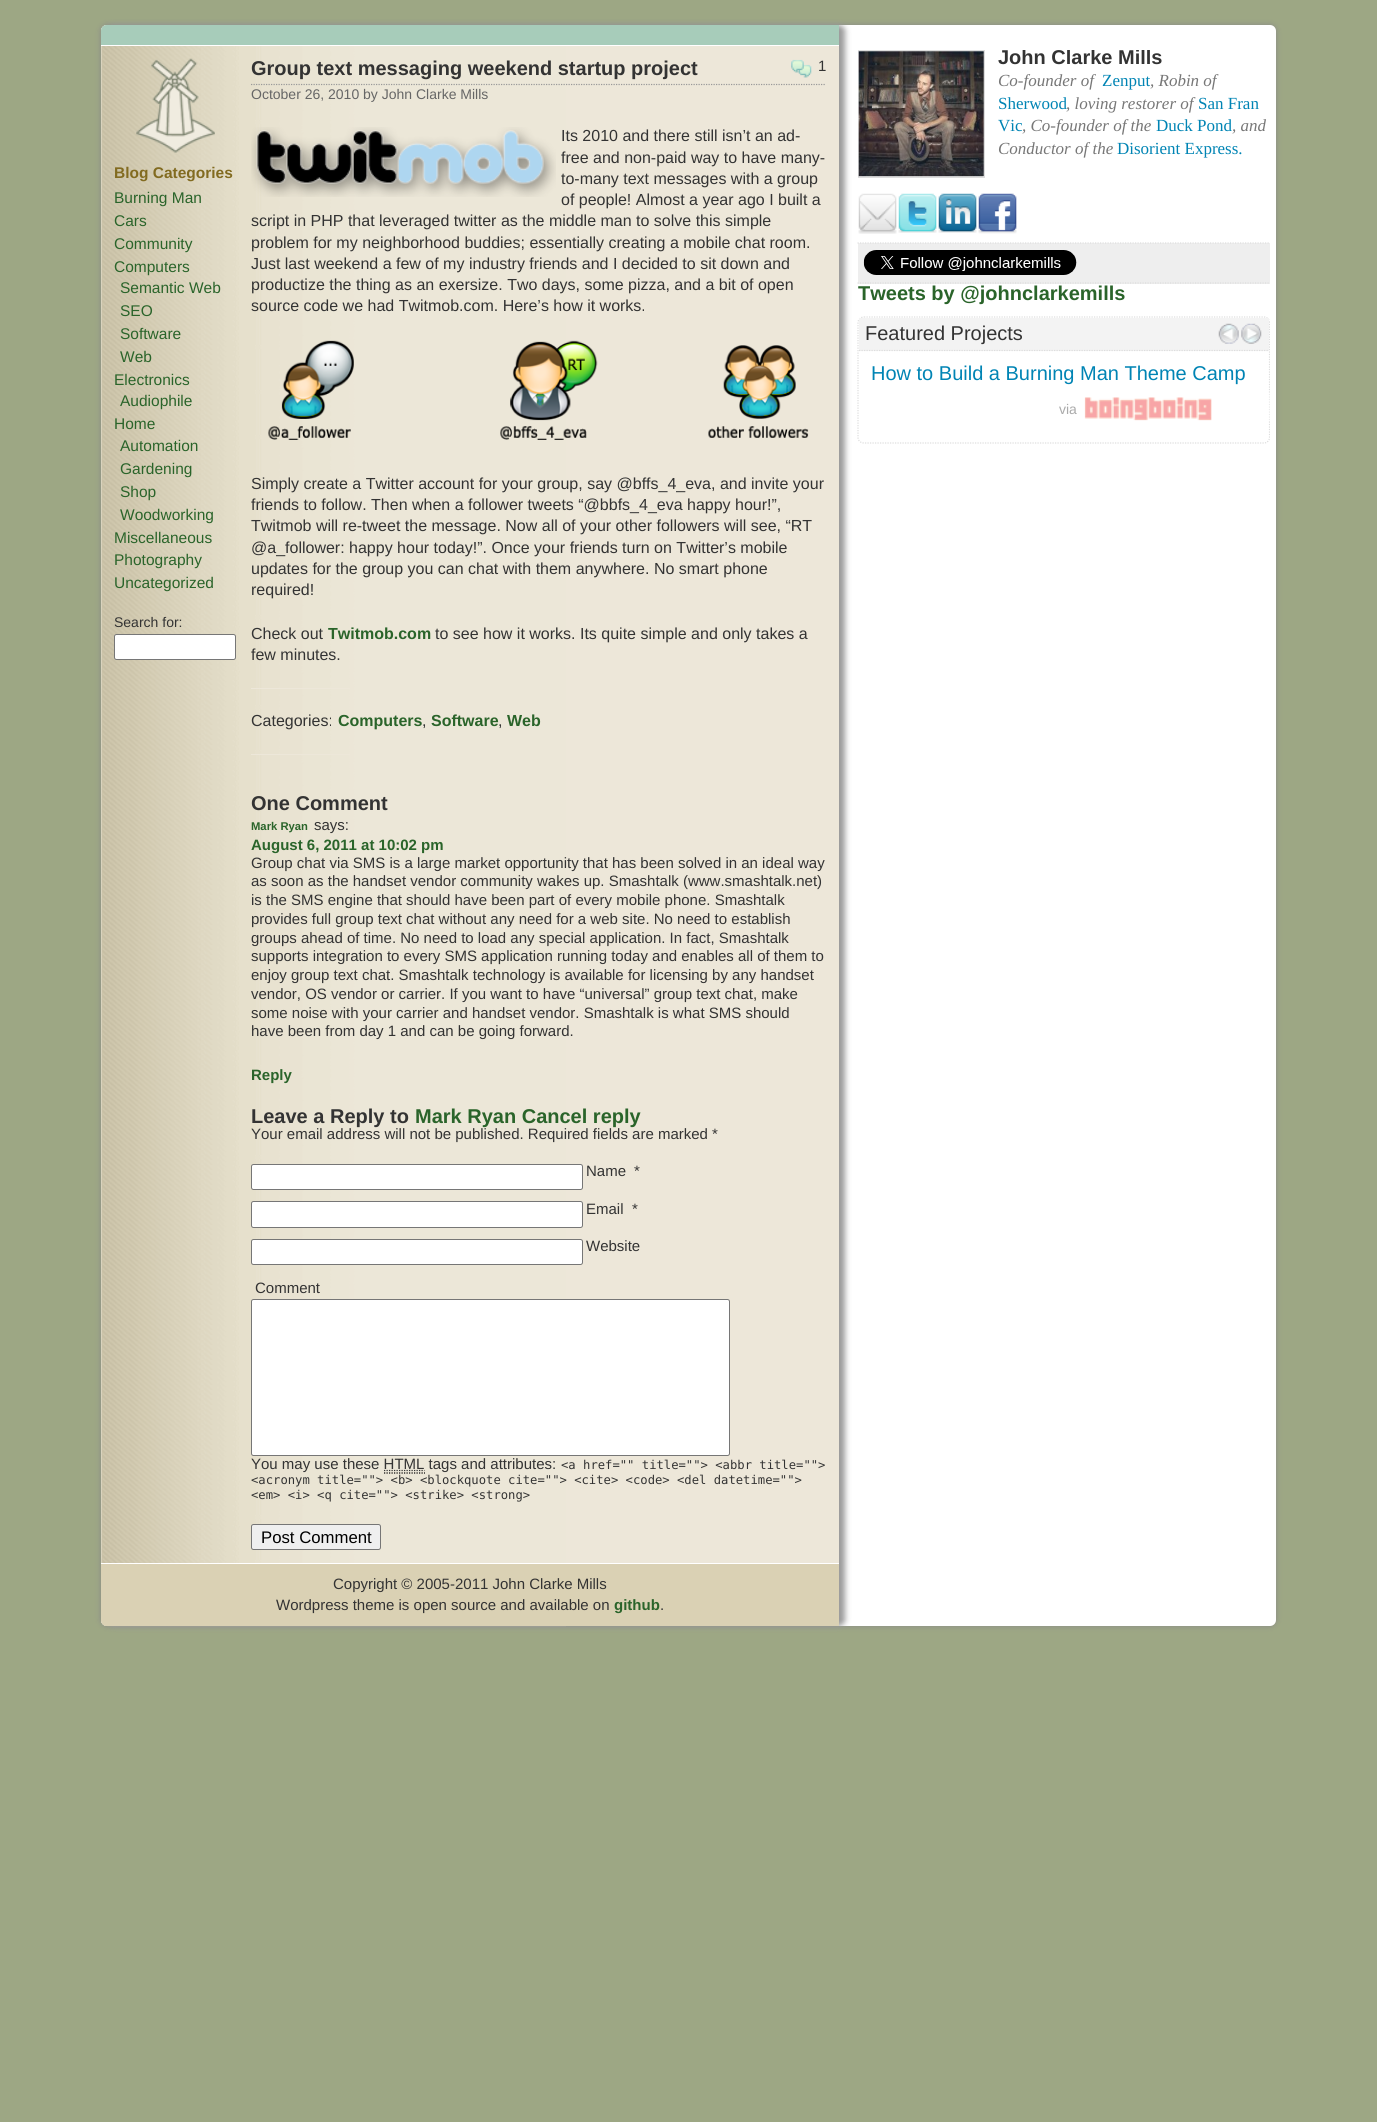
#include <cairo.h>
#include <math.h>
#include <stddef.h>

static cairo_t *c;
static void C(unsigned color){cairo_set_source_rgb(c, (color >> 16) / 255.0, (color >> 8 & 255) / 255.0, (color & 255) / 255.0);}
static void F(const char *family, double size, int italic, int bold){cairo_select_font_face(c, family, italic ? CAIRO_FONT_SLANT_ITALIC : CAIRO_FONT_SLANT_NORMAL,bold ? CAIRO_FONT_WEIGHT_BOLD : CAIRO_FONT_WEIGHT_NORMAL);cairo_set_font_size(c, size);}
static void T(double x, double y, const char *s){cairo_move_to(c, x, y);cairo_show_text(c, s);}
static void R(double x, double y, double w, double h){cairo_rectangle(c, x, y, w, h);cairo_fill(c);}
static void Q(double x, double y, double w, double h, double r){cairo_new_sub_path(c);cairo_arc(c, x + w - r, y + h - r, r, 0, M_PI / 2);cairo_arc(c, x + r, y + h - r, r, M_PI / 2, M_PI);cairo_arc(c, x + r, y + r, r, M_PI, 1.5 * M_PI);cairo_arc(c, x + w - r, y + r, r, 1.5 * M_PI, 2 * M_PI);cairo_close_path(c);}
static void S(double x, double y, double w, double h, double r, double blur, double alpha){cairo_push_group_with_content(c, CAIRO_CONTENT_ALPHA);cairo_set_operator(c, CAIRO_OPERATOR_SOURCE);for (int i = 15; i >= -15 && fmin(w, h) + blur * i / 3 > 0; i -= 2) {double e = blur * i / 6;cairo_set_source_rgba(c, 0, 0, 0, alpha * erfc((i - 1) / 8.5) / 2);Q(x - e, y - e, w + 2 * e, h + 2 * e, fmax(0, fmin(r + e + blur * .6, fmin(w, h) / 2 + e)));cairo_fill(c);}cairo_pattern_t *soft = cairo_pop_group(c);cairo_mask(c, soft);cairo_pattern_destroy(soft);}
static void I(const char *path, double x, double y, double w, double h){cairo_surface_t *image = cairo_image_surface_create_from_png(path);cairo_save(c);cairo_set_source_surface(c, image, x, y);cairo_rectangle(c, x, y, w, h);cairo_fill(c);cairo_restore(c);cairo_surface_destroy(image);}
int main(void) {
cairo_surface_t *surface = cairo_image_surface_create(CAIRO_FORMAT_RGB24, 1377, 2122);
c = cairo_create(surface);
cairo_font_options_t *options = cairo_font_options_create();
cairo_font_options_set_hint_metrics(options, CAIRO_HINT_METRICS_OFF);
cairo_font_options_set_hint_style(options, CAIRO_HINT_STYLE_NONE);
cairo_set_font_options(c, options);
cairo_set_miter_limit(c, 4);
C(0x9da784);
cairo_paint(c);
C(0x888888);
S(101,25,1175,1601,6,3,1);
C(0xffffff);
Q(101,25,1175,1601,6);
cairo_fill(c);
C(0x999999);
S(108,25,737,1601,6,3,1);
C(0xede7d9);
cairo_new_path(c);
cairo_move_to(c,107,25);
cairo_line_to(c,839,25);
cairo_line_to(c,839,1626);
cairo_line_to(c,107,1626);
cairo_curve_to(c,103.5,1626,101,1623.5,101,1620);
cairo_line_to(c,101,31);
cairo_curve_to(c,101,27.5,103.5,25,107,25);
cairo_close_path(c);
cairo_fill(c);
I("1.png",101,25,465,1602);
C(0xa7ccba);
cairo_new_path(c);
cairo_move_to(c,107,25);
cairo_line_to(c,839,25);
cairo_line_to(c,839,46);
cairo_line_to(c,101,46);
cairo_line_to(c,101,31);
cairo_curve_to(c,101,27.5,103.5,25,107,25);
cairo_close_path(c);
cairo_fill(c);
C(0xffffff);
R(101,45,738,1);
I("2.png",136,58,79,95);
F("Liberation Sans",15.5,0,1);
C(0x826b20);
T(114,178,"Blog Categories");
F("Liberation Sans",15.5,0,0);
C(0x2a642a);
T(114,203,"Burning Man");
T(114,226,"Cars");
T(114,249,"Community");
T(114,272,"Computers");
T(120,293,"Semantic Web");
T(120,316,"SEO");
T(120,339,"Software");
T(120,362,"Web");
T(114,385,"Electronics");
T(120,406,"Audiophile");
T(114,429,"Home");
T(120,451,"Automation");
T(120,474,"Gardening");
T(120,497,"Shop");
T(120,520,"Woodworking");
T(114,543,"Miscellaneous");
T(114,565,"Photography");
T(114,588,"Uncategorized");
F("Liberation Sans",14,0,0);
C(0x333333);
T(114,627,"Search for:");
C(0xffffff);
Q(114.5,634.5,121,25,2);
cairo_fill_preserve(c);
C(0x767676);
cairo_set_line_width(c,1);
cairo_stroke(c);
cairo_new_path(c);
cairo_move_to(c,251,84.5);
cairo_line_to(c,826,84.5);
C(0x999999);
cairo_set_line_width(c,1.2);
cairo_set_dash(c,(double[]){1.25,1.25},2,0);
cairo_stroke(c);
F("Liberation Sans",20,0,1);
C(0x333333);
T(251,75,"Group text messaging weekend startup project");
I("3.png",791,59,21,19);
F("Liberation Sans",15,0,0);
T(818,71,"1");
F("Liberation Sans",14,0,0);
C(0x666666);
T(251,99,"October 26, 2010 by John Clarke Mills");
I("4.png",251,127,305,70);
F("Liberation Sans",16,0,0);
C(0x333333);
T(561,141,"Its 2010 and there still isn’t an ad-");
T(561,163,"free and non-paid way to have many-");
T(561,184,"to-many text messages with a group");
T(561,205,"of people! Almost a year ago I built a");
T(251,226,"script in PHP that leveraged twitter as the middle man to solve this simple");
T(251,248,"problem for my neighborhood buddies; essentially creating a mobile chat room.");
T(251,269,"Just last weekend a few of my industry friends and I decided to sit down and");
T(251,290,"productize the thing as an exersize. Two days, some pizza, and a bit of open");
T(251,311,"source code we had Twitmob.com. Here’s how it works.");
I("5.png",268,340,541,100);
T(251,489,"Simply create a Twitter account for your group, say @bffs_4_eva, and invite your");
T(251,510,"friends to follow. Then when a follower tweets “@bbfs_4_eva happy hour!”,");
T(251,531,"Twitmob will re-tweet the message. Now all of your other followers will see, “RT");
T(251,553,"@a_follower: happy hour today!”. Once your friends turn on Twitter’s mobile");
T(251,574,"updates for the group you can chat with them anywhere. No smart phone");
T(251,595,"required!");
T(251,639,"Check out");
F("Liberation Sans",16,0,1);
C(0x2a642a);
T(328,639,"Twitmob.com");
F("Liberation Sans",16,0,0);
C(0x333333);
T(435,639,"to see how it works. Its quite simple and only takes a");
T(251,660,"few minutes.");
C(0xede7d9);
R(251,688,99,1);
C(0x333333);
T(251,726,"Categories:");
F("Liberation Sans",16,0,1);
C(0x2a642a);
T(338,726,"Computers");
F("Liberation Sans",16,0,0);
C(0x333333);
T(422,726,",");
F("Liberation Sans",16,0,1);
C(0x2a642a);
T(431,726,"Software");
F("Liberation Sans",16,0,0);
C(0x333333);
T(498,726,",");
F("Liberation Sans",16,0,1);
C(0x2a642a);
T(507,726,"Web");
C(0xede7d9);
R(251,754,99,1);
F("Liberation Sans",20,0,1);
C(0x333333);
T(251,810,"One Comment");
F("Liberation Sans",11.25,0,1);
C(0x2a642a);
T(251,830,"Mark Ryan");
F("Liberation Sans",15,0,0);
C(0x333333);
T(314,830,"says:");
F("Liberation Sans",15,0,1);
C(0x2a642a);
T(251,850,"August 6, 2011 at 10:02 pm");
F("Liberation Sans",15,0,0);
C(0x333333);
T(251,868,"Group chat via SMS is a large market opportunity that has been solved in an ideal way");
T(251,886,"as soon as the handset vendor community wakes up. Smashtalk (www.smashtalk.net)");
T(251,905,"is the SMS engine that should have been part of every mobile phone. Smashtalk");
T(251,924,"provides full group text chat without any need for a web site. No need to establish");
T(251,943,"groups ahead of time. No need to load any special application. In fact, Smashtalk");
T(251,961,"supports integration to every SMS application running today and enables all of them to");
T(251,980,"enjoy group text chat. Smashtalk technology is available for licensing by any handset");
T(251,999,"vendor, OS vendor or carrier. If you want to have “universal” group text chat, make");
T(251,1018,"some noise with your carrier and handset vendor. Smashtalk is what SMS should");
T(251,1036,"have been from day 1 and can be going forward.");
F("Liberation Sans",15,0,1);
C(0x2a642a);
T(251,1080,"Reply");
F("Liberation Sans",20,0,1);
C(0x333333);
T(251,1123,"Leave a Reply to");
C(0x2a642a);
T(415,1123,"Mark Ryan Cancel reply");
F("Liberation Sans",15,0,0);
C(0x333333);
T(251,1139,"Your email address will not be published. Required fields are marked *");
C(0xffffff);
Q(251.5,1164.5,331,25,2);
cairo_fill_preserve(c);
C(0x767676);
cairo_set_line_width(c,1);
cairo_set_dash(c,NULL,0,0);
cairo_stroke(c);
C(0x333333);
T(586,1176,"Name");
T(634,1176,"*");
C(0xffffff);
Q(251.5,1201.5,331,26,2);
cairo_fill_preserve(c);
C(0x767676);
cairo_stroke(c);
C(0x333333);
T(586,1214,"Email");
T(632,1214,"*");
C(0xffffff);
Q(251.5,1239.5,331,25,2);
cairo_fill_preserve(c);
C(0x767676);
cairo_stroke(c);
C(0x333333);
T(586,1251,"Website");
T(255,1293,"Comment");
C(0xffffff);
Q(251.5,1299.5,478,156,2);
cairo_fill_preserve(c);
C(0x767676);
cairo_stroke(c);
C(0x333333);
T(251,1469,"You may use these HTML tags and attributes:");
F("DejaVu Sans Mono",12.2,0,0);
T(561,1469,"<a href=\"\" title=\"\"> <abbr title=\"\">");
cairo_new_path(c);
cairo_move_to(c,384,1470.5);
cairo_line_to(c,424.5,1470.5);
cairo_set_line_width(c,1.2);
cairo_set_dash(c,(double[]){1.25,1.25},2,0);
cairo_stroke(c);
cairo_new_path(c);
cairo_move_to(c,384,1473);
cairo_line_to(c,425,1473);
C(0x000000);
cairo_stroke(c);
C(0x333333);
T(251,1484,"<acronym title=\"\"> <b> <blockquote cite=\"\"> <cite> <code> <del datetime=\"\">");
T(251,1499,"<em> <i> <q cite=\"\"> <strike> <strong>");
C(0xefefef);
Q(251.5,1524.5,129,25,2);
cairo_fill_preserve(c);
C(0x767676);
cairo_set_line_width(c,1);
cairo_set_dash(c,NULL,0,0);
cairo_stroke(c);
F("Liberation Sans",16.75,0,0);
C(0x000000);
T(261,1543,"Post Comment");
C(0xdad1b4);
cairo_new_path(c);
cairo_move_to(c,101,1563);
cairo_line_to(c,839,1563);
cairo_line_to(c,839,1626);
cairo_line_to(c,107,1626);
cairo_curve_to(c,103.5,1626,101,1623.5,101,1620);
cairo_close_path(c);
cairo_fill(c);
C(0xffffff);
R(101,1563,738,1);
F("Liberation Sans",15,0,0);
C(0x333333);
T(333,1589,"Copyright © 2005-2011 John Clarke Mills");
T(276,1610,"Wordpress theme is open source and available on");
F("Liberation Sans",15,0,1);
C(0x2a642a);
T(614,1610,"github");
F("Liberation Sans",15,0,0);
C(0x333333);
T(660,1610,".");
cairo_rectangle(c,858.5,50.5,126,127);
C(0xdddddd);
cairo_stroke(c);
I("6.png",858,51,126,126);
cairo_save(c);
cairo_rectangle(c,845,50,425,394);
cairo_clip(c);
F("Liberation Sans",20,0,1);
C(0x333333);
T(998,64,"John Clarke Mills");
cairo_restore(c);
F("Liberation Serif",17,1,0);
C(0x777777);
T(998,86,"Co-founder of");
F("Liberation Serif",17,0,0);
C(0x0084b4);
T(1102,86,"Zenput");
F("Liberation Serif",17,1,0);
C(0x777777);
T(1150,86,", Robin of");
F("Liberation Serif",17,0,0);
C(0x0084b4);
T(998,109,"Sherwood");
F("Liberation Serif",17,1,0);
C(0x777777);
T(1066,109,", loving restorer of");
F("Liberation Serif",17,0,0);
C(0x0084b4);
T(1198,109,"San Fran");
T(998,131,"Vic");
F("Liberation Serif",17,1,0);
C(0x777777);
T(1022,131,", Co-founder of the");
F("Liberation Serif",17,0,0);
C(0x0084b4);
T(1156,131,"Duck Pond");
F("Liberation Serif",17,1,0);
C(0x777777);
T(1232,131,", and");
T(998,154,"Conductor of the");
F("Liberation Serif",17,0,0);
C(0x0084b4);
T(1117,154,"Disorient Express.");
I("7.png",858,193,39,41);
I("8.png",898,193,39,40);
I("9.png",938,193,39,40);
I("10.png",978,193,39,41);
C(0xeeeeee);
R(858,243,412,41);
cairo_new_path(c);
cairo_move_to(c,857.5,243);
cairo_line_to(c,1270,243);
C(0xdddddd);
cairo_set_line_width(c,1.2);
cairo_set_dash(c,(double[]){1.25,1.25},2,0);
cairo_stroke(c);
cairo_new_path(c);
cairo_move_to(c,857.5,283);
cairo_line_to(c,1270,283);
cairo_stroke(c);
I("11.png",863,250,214,25);
F("Liberation Sans",20,0,1);
C(0x2a642a);
T(858,300,"Tweets by @johnclarkemills");
cairo_save(c);
cairo_rectangle(c,845,50,425,394);
cairo_clip(c);
cairo_new_path(c);
cairo_move_to(c,864,317);
cairo_line_to(c,1264,317);
cairo_curve_to(c,1267,317,1269.5,319.5,1269.5,322.5);
cairo_line_to(c,1269.5,437.5);
cairo_curve_to(c,1269.5,440.5,1267,443,1264,443);
cairo_line_to(c,864,443);
cairo_curve_to(c,860.5,443,858,440.5,858,437.5);
cairo_line_to(c,858,322.5);
cairo_curve_to(c,858,319.5,860.5,317,864,317);
cairo_close_path(c);
C(0xdddddd);
cairo_stroke(c);
cairo_restore(c);
C(0xf3f3f3);
R(859,318,410,33);
cairo_new_path(c);
cairo_move_to(c,859,350.5);
cairo_line_to(c,1269,350.5);
C(0xdddddd);
cairo_stroke(c);
F("Liberation Sans",20,0,0);
C(0x333333);
T(865,340,"Featured Projects");
I("12.png",1218,323,21,21);
I("13.png",1241,323,21,21);
C(0x0084b4);
T(871,380,"How to Build a Burning Man Theme Camp");
F("Liberation Sans",14,0,0);
C(0xaaaaaa);
T(1059,414,"via");
I("14.png",1084,392,186,29);
cairo_surface_write_to_png(surface, "o.png");
cairo_font_options_destroy(options);
cairo_destroy(c);
cairo_surface_destroy(surface);
return 0;
}
